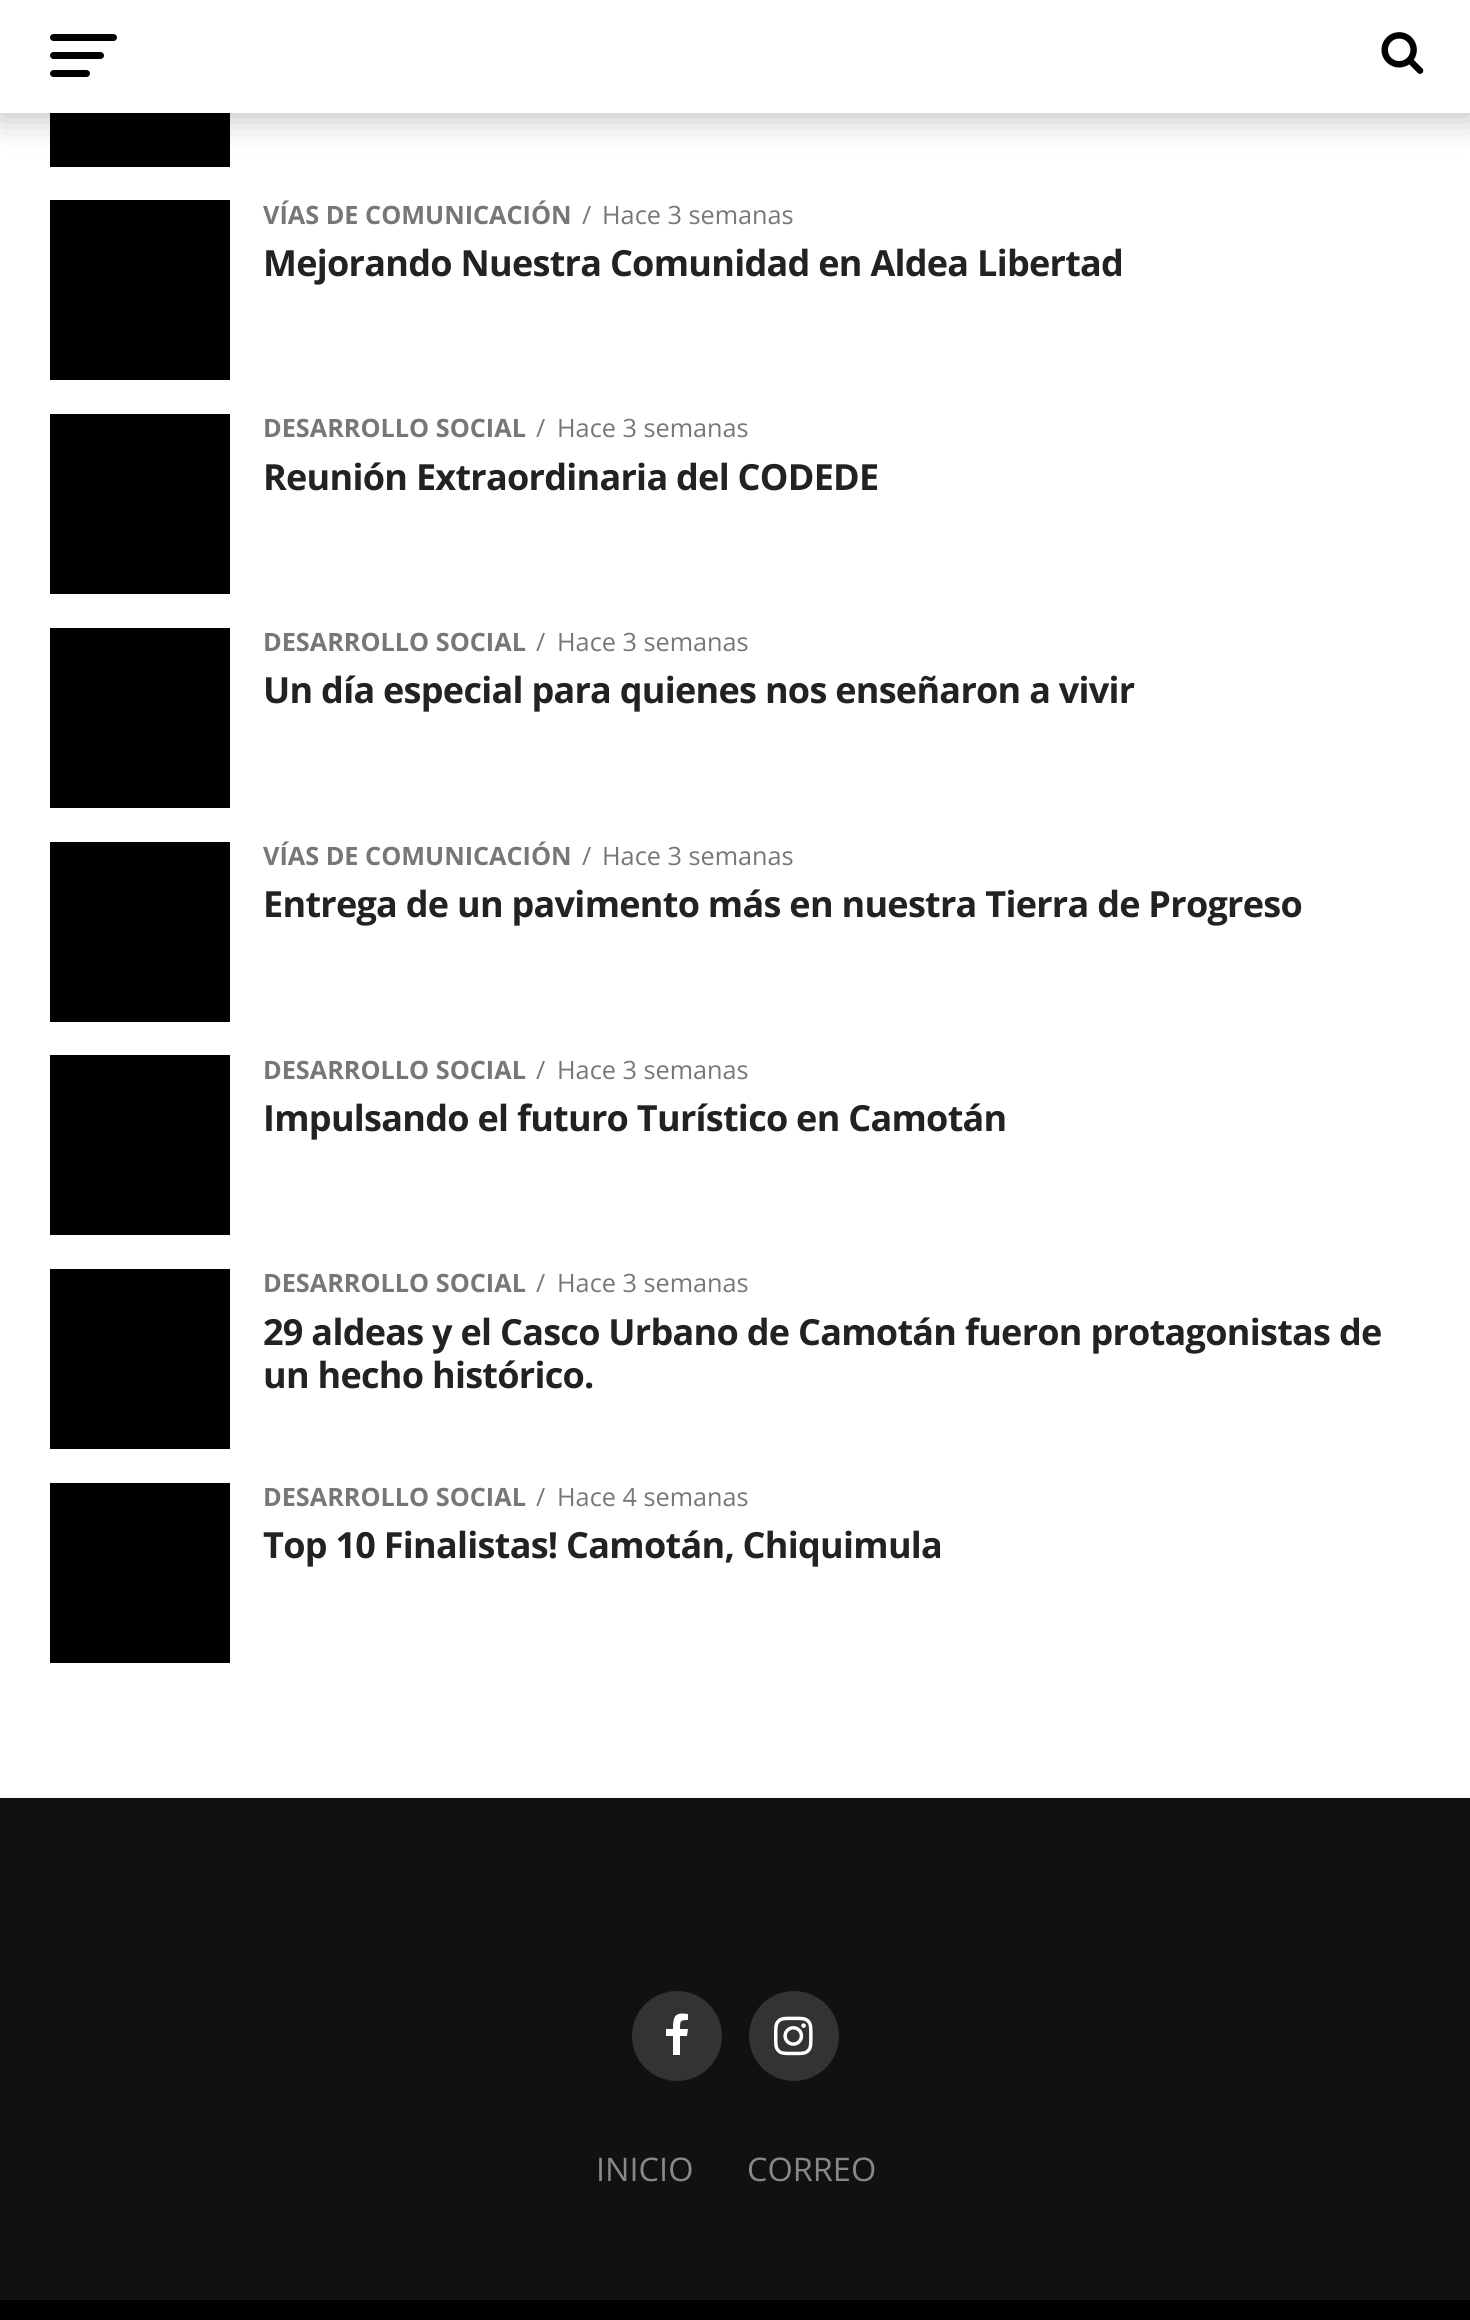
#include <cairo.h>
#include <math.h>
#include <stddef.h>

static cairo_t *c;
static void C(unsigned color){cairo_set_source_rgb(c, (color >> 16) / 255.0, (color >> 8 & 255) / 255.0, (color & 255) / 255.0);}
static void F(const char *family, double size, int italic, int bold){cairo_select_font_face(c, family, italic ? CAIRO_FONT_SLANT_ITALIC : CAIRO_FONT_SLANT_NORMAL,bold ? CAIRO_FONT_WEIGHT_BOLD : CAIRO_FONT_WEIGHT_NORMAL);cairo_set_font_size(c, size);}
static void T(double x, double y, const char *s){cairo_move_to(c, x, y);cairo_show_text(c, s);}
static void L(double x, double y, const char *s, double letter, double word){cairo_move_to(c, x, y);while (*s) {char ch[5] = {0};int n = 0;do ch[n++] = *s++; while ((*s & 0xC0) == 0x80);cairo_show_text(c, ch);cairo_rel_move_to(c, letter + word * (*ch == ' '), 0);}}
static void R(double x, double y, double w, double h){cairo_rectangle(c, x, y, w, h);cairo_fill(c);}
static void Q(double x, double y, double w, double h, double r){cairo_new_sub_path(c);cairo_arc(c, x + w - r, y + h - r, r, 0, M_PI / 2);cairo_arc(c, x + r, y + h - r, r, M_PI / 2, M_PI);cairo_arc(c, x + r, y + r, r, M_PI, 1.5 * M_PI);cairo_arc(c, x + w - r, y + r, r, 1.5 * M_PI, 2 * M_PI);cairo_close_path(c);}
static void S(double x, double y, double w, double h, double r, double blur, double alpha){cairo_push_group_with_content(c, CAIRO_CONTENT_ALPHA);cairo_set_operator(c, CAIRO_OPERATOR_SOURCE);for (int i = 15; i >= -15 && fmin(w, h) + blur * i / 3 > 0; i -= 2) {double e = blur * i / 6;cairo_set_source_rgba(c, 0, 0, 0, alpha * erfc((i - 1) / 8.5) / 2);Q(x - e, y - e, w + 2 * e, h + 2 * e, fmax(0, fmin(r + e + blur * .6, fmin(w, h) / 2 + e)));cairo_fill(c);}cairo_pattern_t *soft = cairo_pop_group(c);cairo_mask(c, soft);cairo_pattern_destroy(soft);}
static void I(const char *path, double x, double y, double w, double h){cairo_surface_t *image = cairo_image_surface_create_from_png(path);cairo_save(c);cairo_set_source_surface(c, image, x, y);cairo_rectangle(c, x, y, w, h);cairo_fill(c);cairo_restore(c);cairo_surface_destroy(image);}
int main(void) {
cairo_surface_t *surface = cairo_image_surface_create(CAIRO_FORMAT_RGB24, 1470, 2320);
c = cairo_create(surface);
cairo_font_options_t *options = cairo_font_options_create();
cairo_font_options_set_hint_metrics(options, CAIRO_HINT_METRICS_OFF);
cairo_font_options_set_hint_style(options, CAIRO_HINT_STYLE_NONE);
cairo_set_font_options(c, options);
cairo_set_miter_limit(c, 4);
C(0xffffff);
cairo_paint(c);
C(0x000000);
R(50,113,180,54);
C(0x000000);
S(0,2,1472,113,0,18,.3);
C(0xffffff);
R(0,0,1470,113);
C(0x000000);
Q(50,34,67,7,3.5);
cairo_fill(c);
Q(50,52,54,7,3.5);
cairo_fill(c);
Q(50,70,40,7,3.5);
cairo_fill(c);
I("1.png",1381,32,43,42);
R(50,200,180,180);
F("Open Sans",25.25,0,1);
C(0x777777);
T(263,224,"VÍAS DE COMUNICACIÓN");
F("Open Sans",25.25,0,0);
T(582,224,"/");
T(602,224,"Hace 3 semanas");
F("Open Sans",36,0,1);
C(0x222222);
L(263,276,"Mejorando Nuestra Comunidad en Aldea Libertad",-.72,0);
C(0x000000);
R(50,414,180,180);
F("Open Sans",25.25,0,1);
C(0x777777);
T(263,437,"DESARROLLO SOCIAL");
F("Open Sans",25.25,0,0);
T(536,437,"/");
T(557,437,"Hace 3 semanas");
F("Open Sans",36,0,1);
C(0x222222);
L(263,490,"Reunión Extraordinaria del CODEDE",-.72,0);
C(0x000000);
R(50,628,180,180);
F("Open Sans",25.25,0,1);
C(0x777777);
T(263,651,"DESARROLLO SOCIAL");
F("Open Sans",25.25,0,0);
T(536,651,"/");
T(557,651,"Hace 3 semanas");
F("Open Sans",36,0,1);
C(0x222222);
L(263,703,"Un día especial para quienes nos enseñaron a vivir",-.72,0);
C(0x000000);
R(50,842,180,180);
F("Open Sans",25.25,0,1);
C(0x777777);
T(263,865,"VÍAS DE COMUNICACIÓN");
F("Open Sans",25.25,0,0);
T(582,865,"/");
T(602,865,"Hace 3 semanas");
F("Open Sans",36,0,1);
C(0x222222);
L(263,917,"Entrega de un pavimento más en nuestra Tierra de Progreso",-.72,0);
C(0x000000);
R(50,1055,180,180);
F("Open Sans",25.25,0,1);
C(0x777777);
T(263,1079,"DESARROLLO SOCIAL");
F("Open Sans",25.25,0,0);
T(536,1079,"/");
T(557,1079,"Hace 3 semanas");
F("Open Sans",36,0,1);
C(0x222222);
L(263,1131,"Impulsando el futuro Turístico en Camotán",-.72,0);
C(0x000000);
R(50,1269,180,180);
F("Open Sans",25.25,0,1);
C(0x777777);
T(263,1292,"DESARROLLO SOCIAL");
F("Open Sans",25.25,0,0);
T(536,1292,"/");
T(557,1292,"Hace 3 semanas");
F("Open Sans",36,0,1);
C(0x222222);
L(263,1345,"29 aldeas y el Casco Urbano de Camotán fueron protagonistas de",-.72,0);
L(263,1388,"un hecho histórico.",-.72,0);
C(0x000000);
R(50,1483,180,180);
F("Open Sans",25.25,0,1);
C(0x777777);
T(263,1506,"DESARROLLO SOCIAL");
F("Open Sans",25.25,0,0);
T(536,1506,"/");
T(557,1506,"Hace 4 semanas");
F("Open Sans",36,0,1);
C(0x222222);
L(263,1558,"Top 10 Finalistas! Camotán, Chiquimula",-.72,0);
C(0x111111);
R(0,1798,1470,502);
C(0x333333);
cairo_new_path(c);
cairo_arc(c,677,2036,45,0,2 * M_PI);
cairo_fill(c);
C(0xffffff);
cairo_new_path(c);
cairo_move_to(c,688,2014);
cairo_curve_to(c,675,2012,673,2016,673,2029);
cairo_line_to(c,666,2029);
cairo_line_to(c,666,2036);
cairo_line_to(c,673,2036);
cairo_line_to(c,673,2055);
cairo_line_to(c,680,2055);
cairo_line_to(c,680,2036);
cairo_line_to(c,687,2036);
cairo_line_to(c,688,2029);
cairo_line_to(c,680,2029);
cairo_curve_to(c,680,2021,680,2020,688,2020);
cairo_close_path(c);
cairo_fill(c);
C(0x333333);
cairo_arc(c,794,2036,45,0,2 * M_PI);
cairo_fill(c);
I("2.png",774,2016,39,40);
F("Open Sans",32.5,0,0);
C(0x888888);
T(596,2181,"INICIO");
T(747,2181,"CORREO");
C(0x000000);
R(0,2300,1470,20);
cairo_surface_write_to_png(surface, "o.png");
cairo_font_options_destroy(options);
cairo_destroy(c);
cairo_surface_destroy(surface);
return 0;
}
